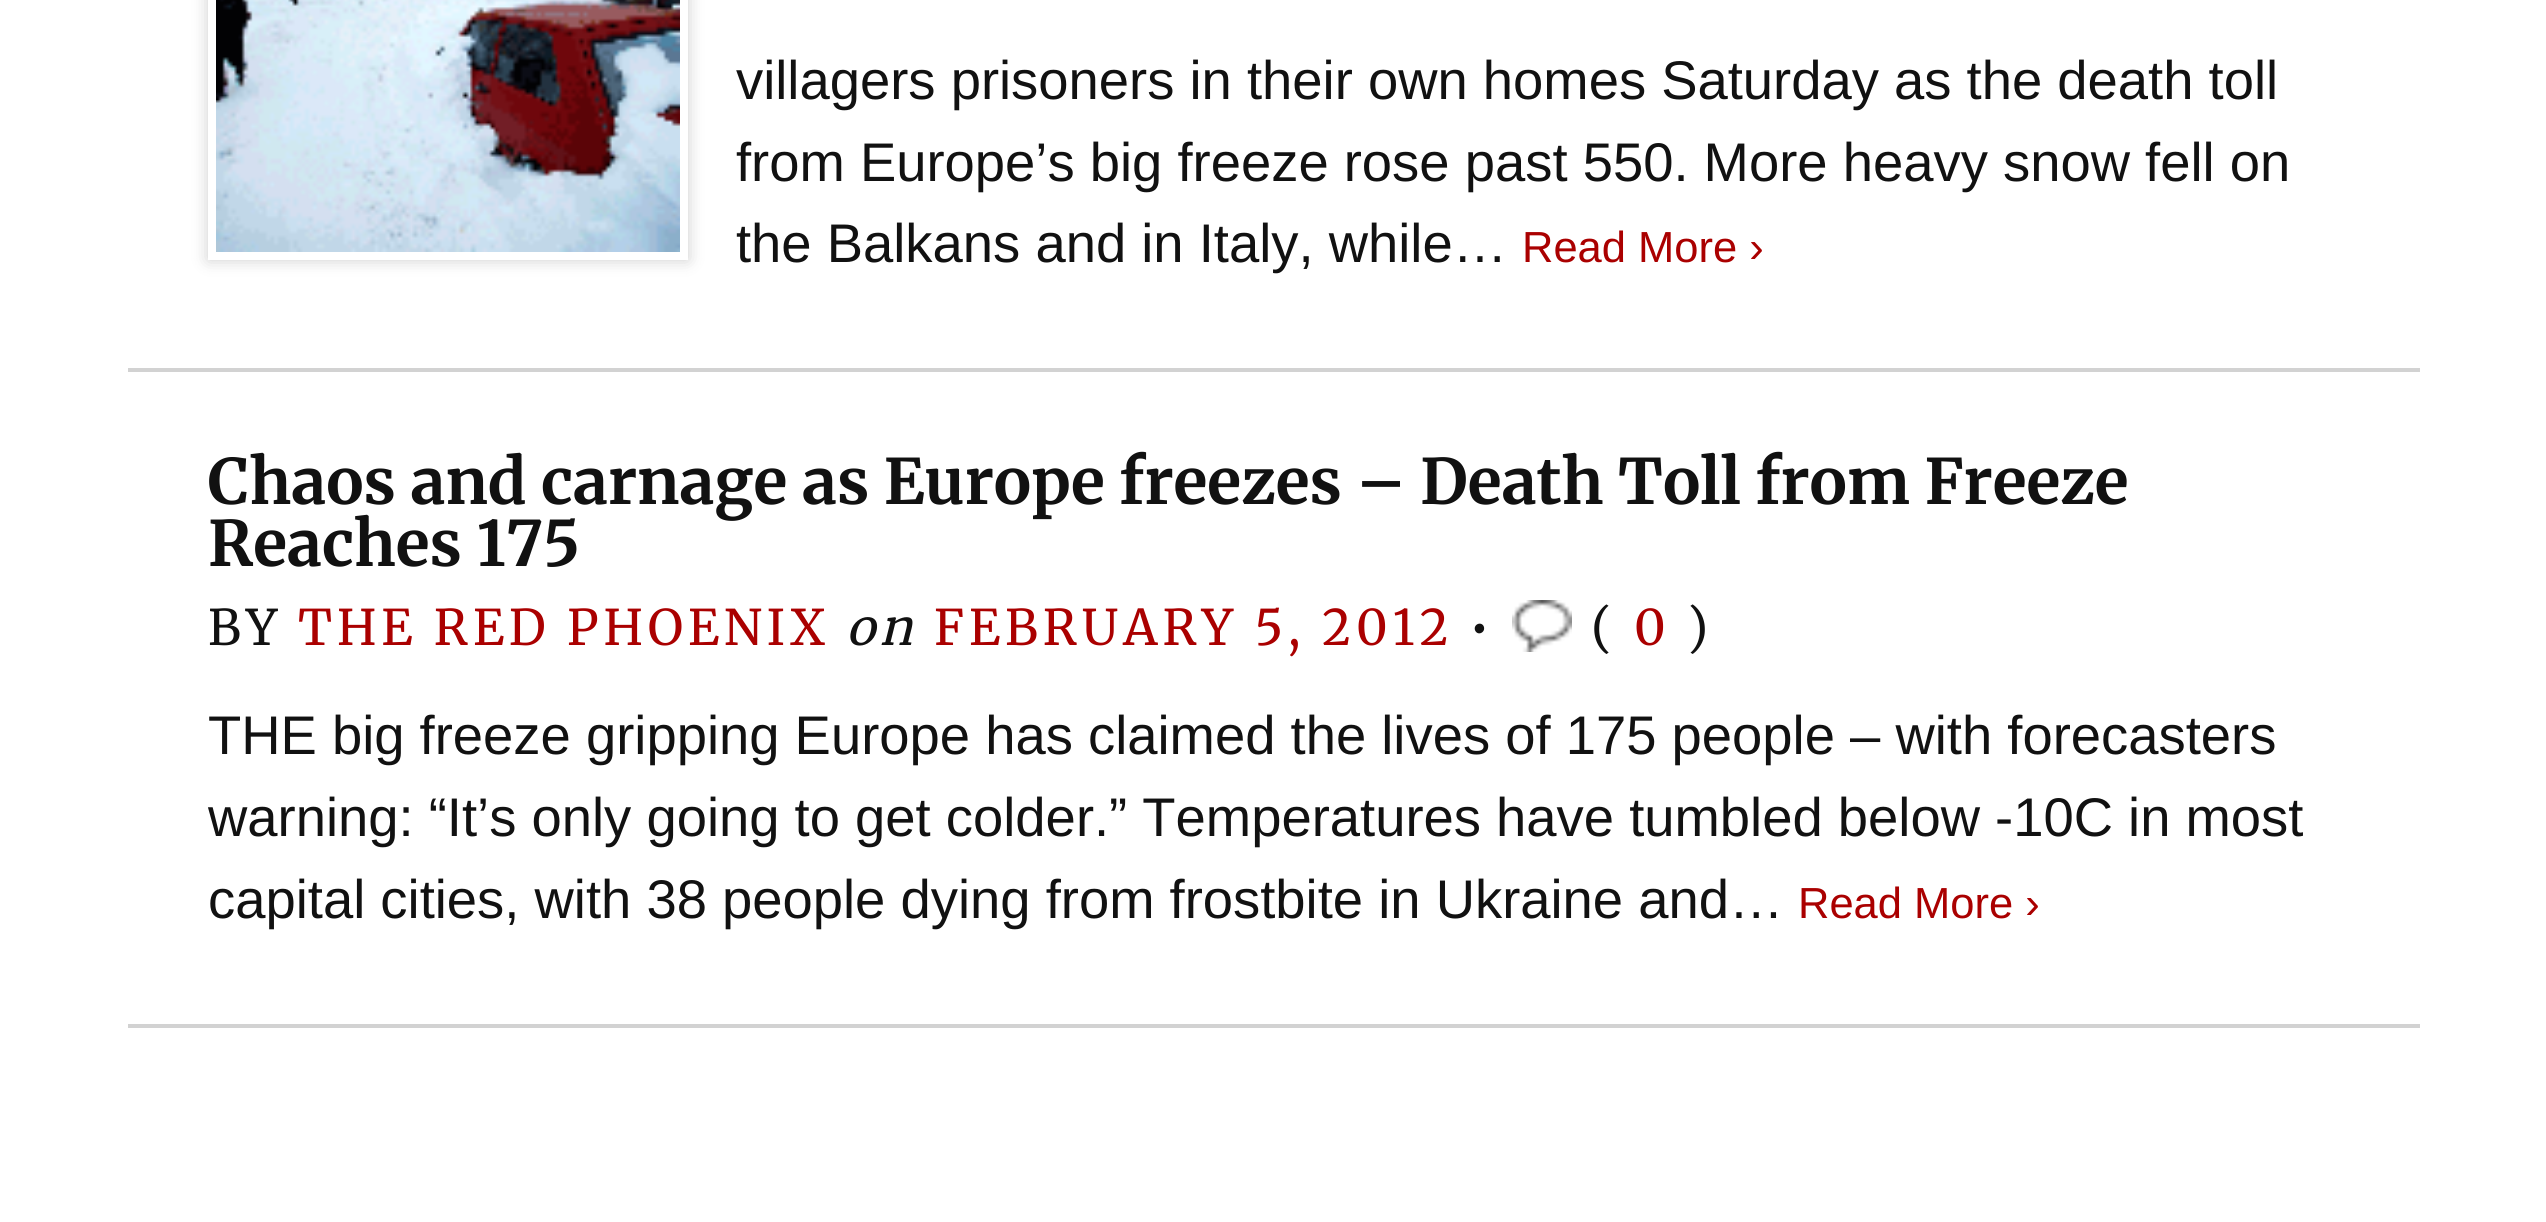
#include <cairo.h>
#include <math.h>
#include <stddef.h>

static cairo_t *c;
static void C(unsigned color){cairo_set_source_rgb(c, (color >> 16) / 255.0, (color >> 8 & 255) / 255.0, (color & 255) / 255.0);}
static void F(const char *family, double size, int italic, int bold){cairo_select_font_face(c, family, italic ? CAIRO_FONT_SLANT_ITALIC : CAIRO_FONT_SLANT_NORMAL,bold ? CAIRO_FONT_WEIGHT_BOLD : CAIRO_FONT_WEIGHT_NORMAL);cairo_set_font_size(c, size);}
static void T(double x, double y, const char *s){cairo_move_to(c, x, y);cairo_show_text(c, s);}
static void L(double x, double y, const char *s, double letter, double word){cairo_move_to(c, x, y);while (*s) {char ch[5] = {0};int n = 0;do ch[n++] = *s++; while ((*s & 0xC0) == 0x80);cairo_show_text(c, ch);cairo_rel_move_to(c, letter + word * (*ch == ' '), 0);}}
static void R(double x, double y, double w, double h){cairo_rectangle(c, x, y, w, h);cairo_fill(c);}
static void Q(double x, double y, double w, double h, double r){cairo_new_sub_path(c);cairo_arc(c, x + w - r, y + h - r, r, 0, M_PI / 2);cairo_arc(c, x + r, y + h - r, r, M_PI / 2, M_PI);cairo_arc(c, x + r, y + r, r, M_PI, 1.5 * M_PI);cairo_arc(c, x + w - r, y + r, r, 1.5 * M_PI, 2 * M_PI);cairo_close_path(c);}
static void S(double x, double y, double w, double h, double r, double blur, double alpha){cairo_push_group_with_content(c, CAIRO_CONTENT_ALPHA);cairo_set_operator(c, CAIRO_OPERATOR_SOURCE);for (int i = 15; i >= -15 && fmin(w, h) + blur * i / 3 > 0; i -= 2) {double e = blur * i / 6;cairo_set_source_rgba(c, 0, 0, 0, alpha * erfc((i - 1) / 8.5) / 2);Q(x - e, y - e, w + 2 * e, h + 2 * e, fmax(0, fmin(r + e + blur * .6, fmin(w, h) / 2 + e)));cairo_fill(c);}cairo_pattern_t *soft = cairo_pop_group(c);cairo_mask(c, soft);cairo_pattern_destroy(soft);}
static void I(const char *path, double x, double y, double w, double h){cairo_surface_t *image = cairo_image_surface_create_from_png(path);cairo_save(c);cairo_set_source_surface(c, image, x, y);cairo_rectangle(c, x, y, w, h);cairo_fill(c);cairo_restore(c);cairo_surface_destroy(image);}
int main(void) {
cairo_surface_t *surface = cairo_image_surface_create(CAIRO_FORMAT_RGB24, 2546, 1222);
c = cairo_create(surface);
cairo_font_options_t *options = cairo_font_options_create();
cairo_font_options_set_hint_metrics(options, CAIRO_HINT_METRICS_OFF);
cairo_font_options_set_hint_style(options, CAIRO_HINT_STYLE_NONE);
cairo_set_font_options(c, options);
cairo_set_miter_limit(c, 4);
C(0xffffff);
cairo_paint(c);
C(0xd2d2d2);
R(128,368,2292,4);
cairo_save(c);
cairo_set_fill_rule(c,CAIRO_FILL_RULE_EVEN_ODD);
cairo_new_path(c);
cairo_move_to(c,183,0);
cairo_line_to(c,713,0);
cairo_line_to(c,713,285);
cairo_line_to(c,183,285);
cairo_close_path(c);
cairo_move_to(c,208,-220);
cairo_line_to(c,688,-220);
cairo_line_to(c,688,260);
cairo_line_to(c,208,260);
cairo_close_path(c);
cairo_clip(c);
C(0x000000);
S(208,-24,480,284,0,8,.2);
cairo_restore(c);
I("1.png",216,0,464,252);
F("Liberation Sans",54.4,0,0);
C(0x111111);
T(736,99,"villagers prisoners in their own homes Saturday as the death toll");
T(736,181,"from Europe’s big freeze rose past 550. More heavy snow fell on");
T(736,262,"the Balkans and in Italy, while…");
F("Liberation Sans",43.5,0,0);
C(0xaa0000);
T(1522,262,"Read More ›");
C(0xd2d2d2);
R(128,1024,2292,4);
F("Merriweather",62.55,0,1);
C(0x111111);
L(208,504,"Chaos and carnage as Europe freezes – Death Toll from Freeze",0,-.25);
T(208,566,"Reaches 175");
F("Merriweather",49,0,0);
L(208,645,"BY",4.9,0);
C(0xaa0000);
L(298,645,"THE RED PHOENIX",4.9,0);
F("Merriweather",49,1,0);
C(0x111111);
L(846,645,"on",4.9,0);
F("Merriweather",49,0,0);
C(0xaa0000);
L(934,645,"FEBRUARY 5, 2012",4.9,0);
C(0x111111);
L(1469,645,"•",4.9,0);
I("2.png",1512,600,60,52);
L(1591,645,"(",4.9,0);
C(0xaa0000);
L(1634,645,"0",4.9,0);
C(0x111111);
L(1687,645,")",4.9,0);
F("Liberation Sans",54.4,0,0);
T(208,754,"THE big freeze gripping Europe has claimed the lives of 175 people – with forecasters");
T(208,836,"warning: “It’s only going to get colder.” Temperatures have tumbled below -10C in most");
T(208,918,"capital cities, with 38 people dying from frostbite in Ukraine and…");
F("Liberation Sans",43.5,0,0);
C(0xaa0000);
T(1798,918,"Read More ›");
cairo_surface_write_to_png(surface, "o.png");
cairo_font_options_destroy(options);
cairo_destroy(c);
cairo_surface_destroy(surface);
return 0;
}
